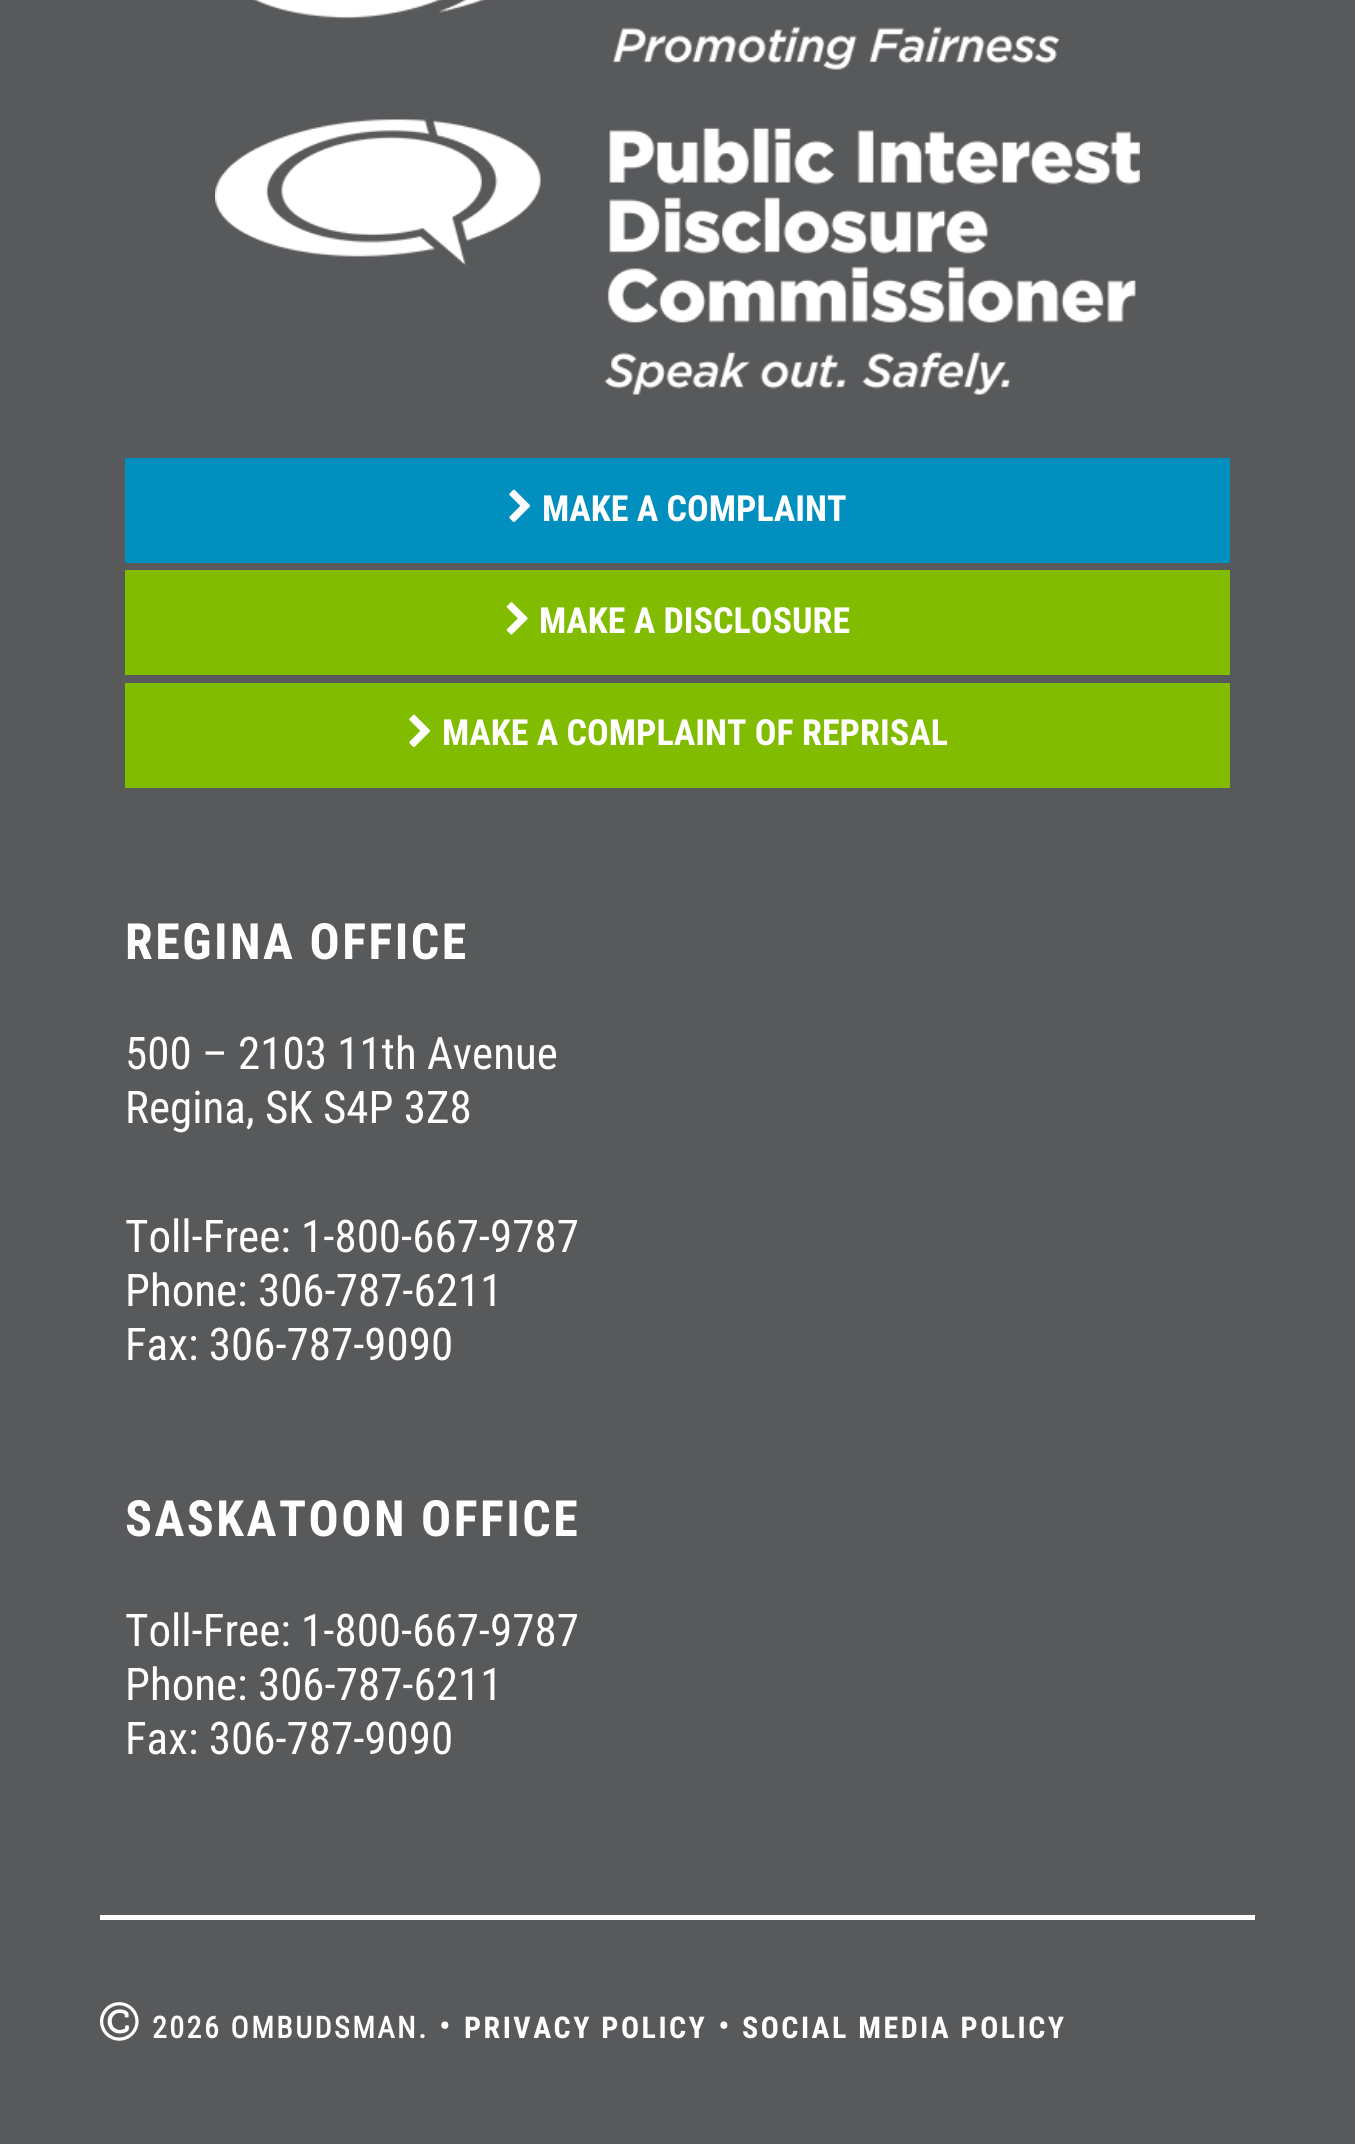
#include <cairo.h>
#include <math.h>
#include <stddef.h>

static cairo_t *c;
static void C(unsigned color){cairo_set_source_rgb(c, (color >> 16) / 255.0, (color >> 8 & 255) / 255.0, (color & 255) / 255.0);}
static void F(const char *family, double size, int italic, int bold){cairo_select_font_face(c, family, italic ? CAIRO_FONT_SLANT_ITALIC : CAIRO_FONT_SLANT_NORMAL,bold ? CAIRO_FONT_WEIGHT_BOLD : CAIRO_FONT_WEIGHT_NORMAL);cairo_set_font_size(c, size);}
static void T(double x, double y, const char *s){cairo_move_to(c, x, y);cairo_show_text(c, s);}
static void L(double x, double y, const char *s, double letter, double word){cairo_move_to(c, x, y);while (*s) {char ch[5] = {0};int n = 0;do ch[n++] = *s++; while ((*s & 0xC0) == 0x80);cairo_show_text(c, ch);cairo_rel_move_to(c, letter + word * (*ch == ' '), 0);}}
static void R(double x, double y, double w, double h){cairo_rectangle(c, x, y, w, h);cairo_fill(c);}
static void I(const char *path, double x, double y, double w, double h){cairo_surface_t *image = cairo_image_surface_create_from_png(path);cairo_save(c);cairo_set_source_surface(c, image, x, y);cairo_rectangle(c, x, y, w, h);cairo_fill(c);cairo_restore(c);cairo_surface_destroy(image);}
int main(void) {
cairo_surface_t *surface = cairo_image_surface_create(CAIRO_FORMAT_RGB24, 1355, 2144);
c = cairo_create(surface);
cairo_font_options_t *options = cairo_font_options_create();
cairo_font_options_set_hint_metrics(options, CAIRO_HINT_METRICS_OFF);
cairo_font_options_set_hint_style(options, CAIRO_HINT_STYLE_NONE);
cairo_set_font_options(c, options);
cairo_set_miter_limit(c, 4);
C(0x58595b);
cairo_paint(c);
I("1.png",253,0,807,70);
I("2.png",215,119,925,276);
C(0x008fbe);
R(125,458,1105,105);
I("3.png",509,489,22,33);
F("Roboto Condensed",36,0,1);
C(0xfefefe);
T(542,521,"MAKE A COMPLAINT");
C(0x82bc00);
R(125,570,1105,105);
I("4.png",506,602,22,33);
C(0xfefefe);
T(539,633,"MAKE A DISCLOSURE");
C(0x82bc00);
R(125,683,1105,105);
I("5.png",409,714,22,33);
C(0xfefefe);
T(442,745,"MAKE A COMPLAINT OF REPRISAL");
F("Roboto Condensed",50,0,1);
L(125,959,"REGINA OFFICE",2.5,0);
F("Roboto Condensed",45,0,0);
T(125,1069,"500 – 2103 11th Avenue");
T(125,1123,"Regina, SK S4P 3Z8");
T(125,1252,"Toll-Free: 1-800-667-9787");
T(125,1306,"Phone: 306-787-6211");
T(125,1360,"Fax: 306-787-9090");
F("Roboto Condensed",50,0,1);
L(125,1536,"SASKATOON OFFICE",2.5,0);
F("Roboto Condensed",45,0,0);
T(125,1646,"Toll-Free: 1-800-667-9787");
T(125,1700,"Phone: 306-787-6211");
T(125,1754,"Fax: 306-787-9090");
C(0xffffff);
R(100,1915,1155,5);
I("6.png",100,2002,39,39);
F("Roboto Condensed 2",30,0,1);
C(0xfefefe);
L(152,2038,"2026 OMBUDSMAN.",2.5,0);
F("Roboto Condensed",35,0,0);
L(439,2038,"•",2.5,0);
F("Roboto Condensed",30,0,1);
L(464,2038,"PRIVACY POLICY",2.5,0);
F("Roboto Condensed",35,0,0);
L(718,2038,"•",2.5,0);
F("Roboto Condensed",30,0,1);
L(742,2038,"SOCIAL MEDIA POLICY",2.5,0);
cairo_surface_write_to_png(surface, "o.png");
cairo_font_options_destroy(options);
cairo_destroy(c);
cairo_surface_destroy(surface);
return 0;
}
